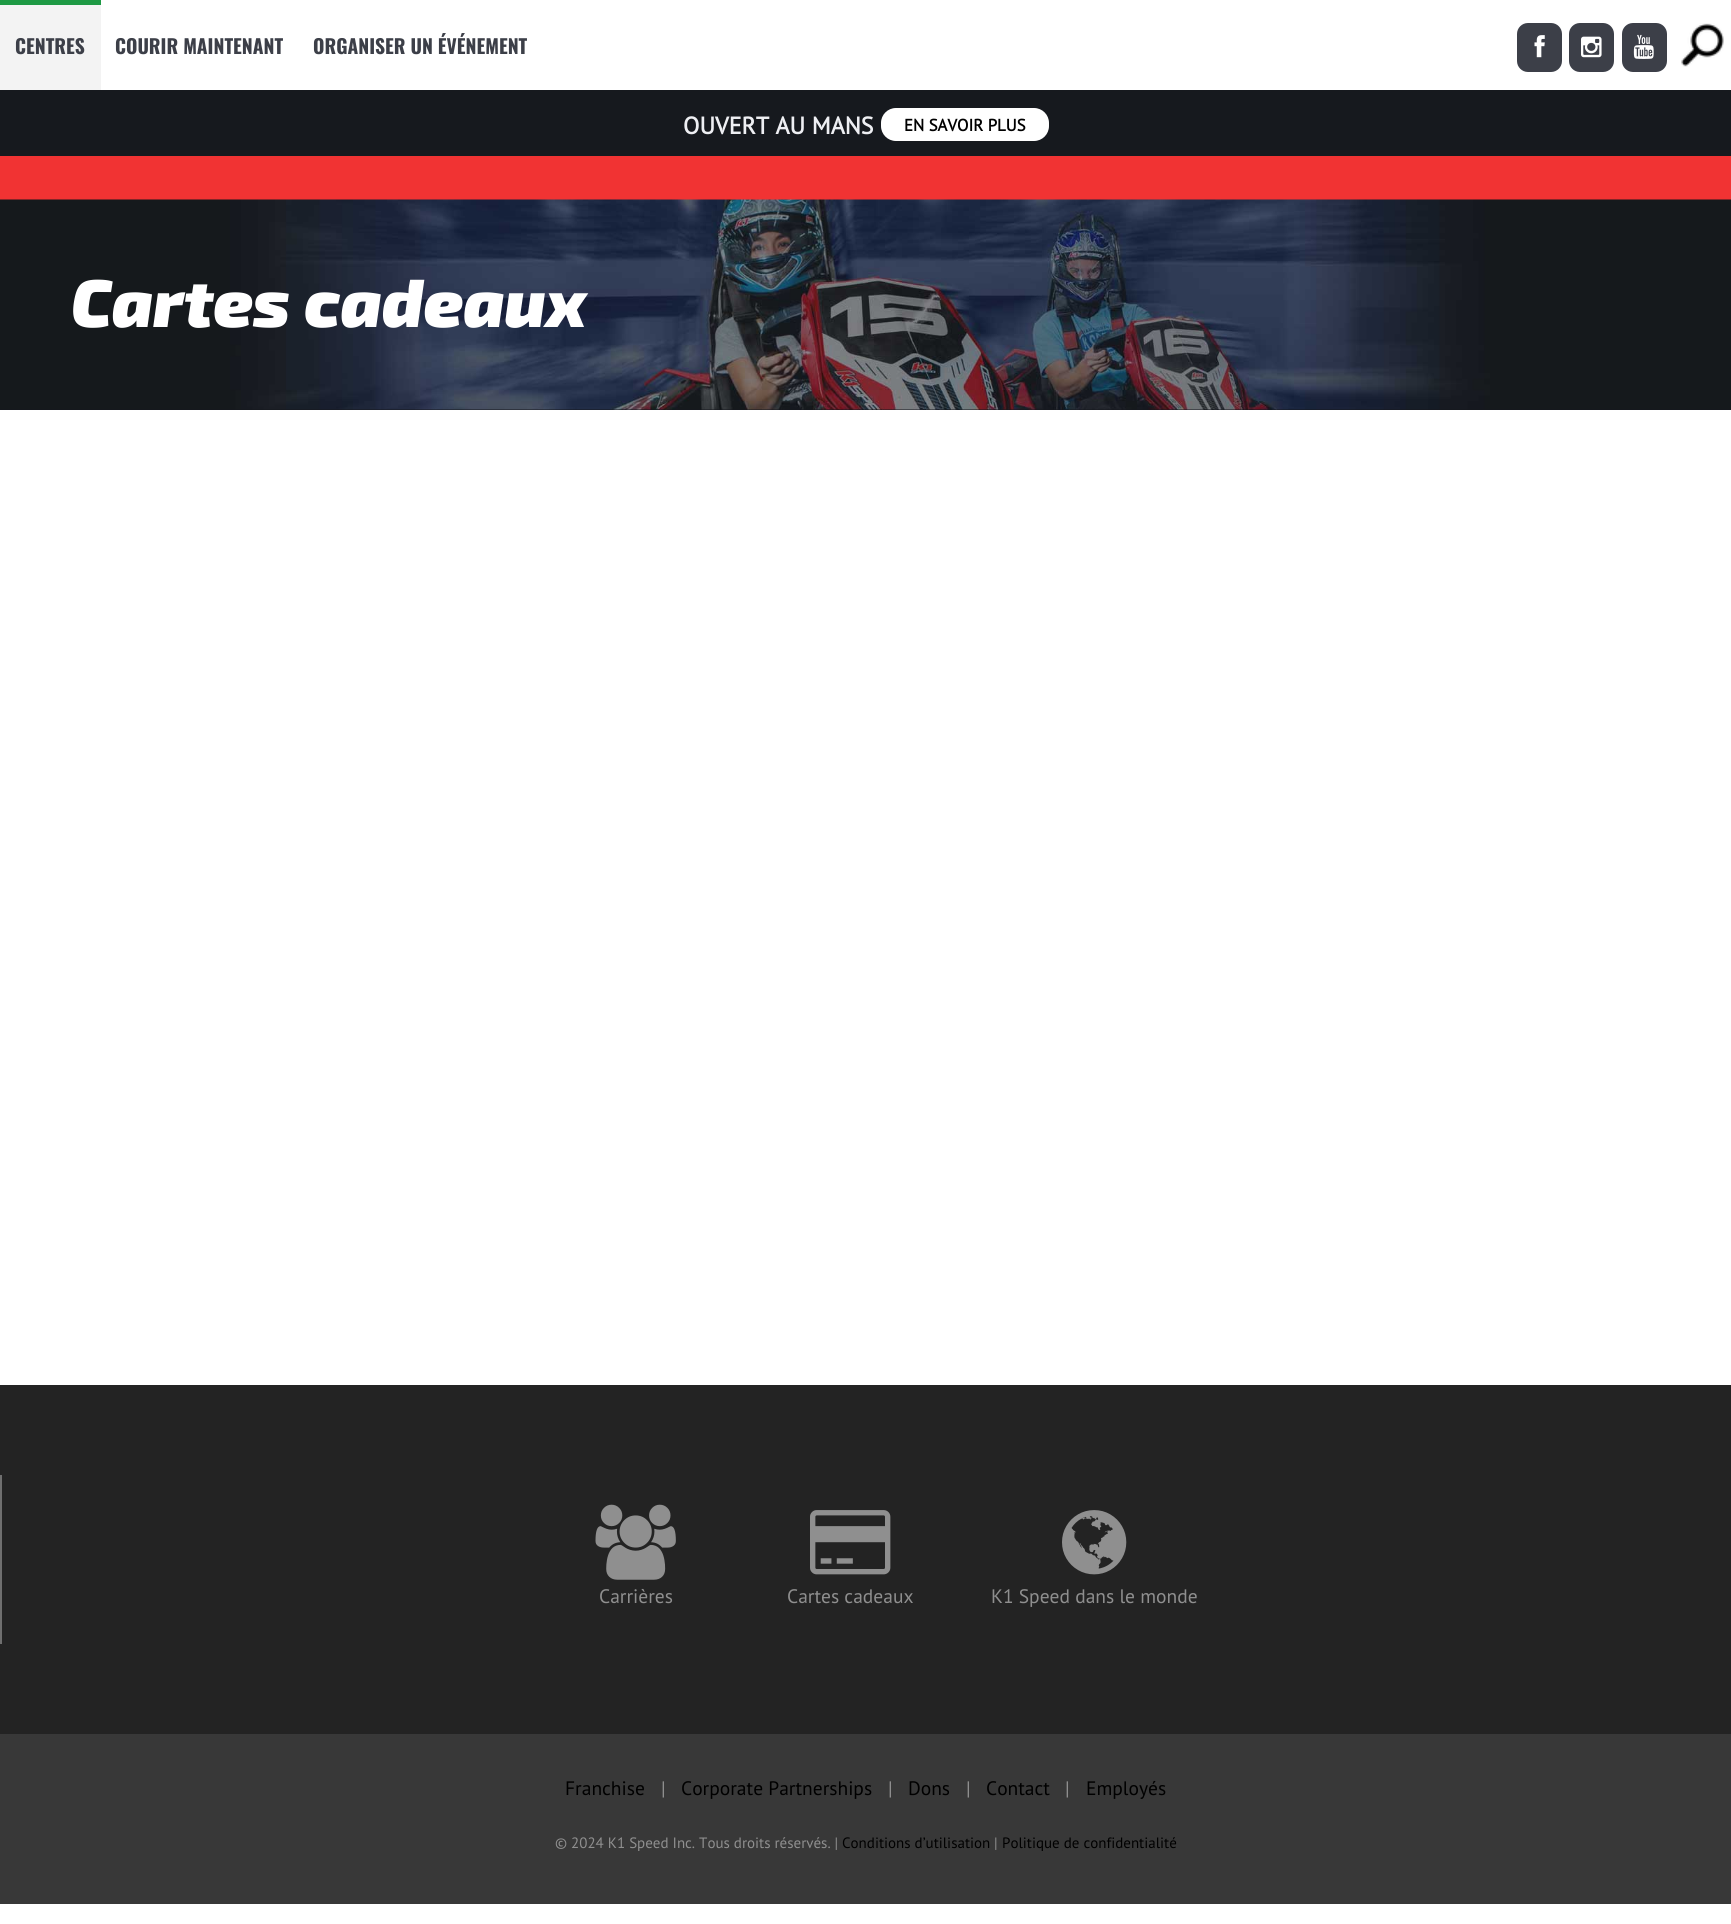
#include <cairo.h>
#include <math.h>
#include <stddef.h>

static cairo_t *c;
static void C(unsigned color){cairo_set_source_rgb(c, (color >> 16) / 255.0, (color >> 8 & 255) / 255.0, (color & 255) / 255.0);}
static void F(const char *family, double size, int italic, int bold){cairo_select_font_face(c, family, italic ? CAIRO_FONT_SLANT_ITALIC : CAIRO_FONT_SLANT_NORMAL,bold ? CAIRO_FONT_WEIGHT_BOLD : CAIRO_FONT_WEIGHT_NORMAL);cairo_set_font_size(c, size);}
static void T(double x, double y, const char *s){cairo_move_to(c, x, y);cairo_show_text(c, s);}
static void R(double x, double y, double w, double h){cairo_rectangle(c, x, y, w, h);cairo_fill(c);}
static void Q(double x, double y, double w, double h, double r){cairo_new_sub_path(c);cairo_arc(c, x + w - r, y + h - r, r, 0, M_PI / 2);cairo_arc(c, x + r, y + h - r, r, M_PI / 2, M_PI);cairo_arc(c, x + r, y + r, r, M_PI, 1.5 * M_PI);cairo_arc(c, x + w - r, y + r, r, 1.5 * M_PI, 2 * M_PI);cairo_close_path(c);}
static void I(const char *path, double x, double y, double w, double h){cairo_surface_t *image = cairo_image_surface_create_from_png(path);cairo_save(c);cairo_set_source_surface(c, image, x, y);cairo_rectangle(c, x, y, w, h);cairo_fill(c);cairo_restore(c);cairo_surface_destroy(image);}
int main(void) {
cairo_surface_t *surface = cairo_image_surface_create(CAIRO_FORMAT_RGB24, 1731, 1924);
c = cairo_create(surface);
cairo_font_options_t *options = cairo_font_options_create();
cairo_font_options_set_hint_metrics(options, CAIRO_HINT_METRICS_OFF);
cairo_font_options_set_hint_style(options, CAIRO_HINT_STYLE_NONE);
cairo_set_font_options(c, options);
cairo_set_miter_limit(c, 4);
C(0xffffff);
cairo_paint(c);
C(0xf3f3f3);
R(0,5,101,85);
C(0x1e9944);
R(0,0,101,5);
F("Oswald",19.5,0,1);
C(0x3c3f48);
T(15,54,"CENTRES");
T(115,54,"COURIR MAINTENANT");
T(313,54,"ORGANISER UN ÉVÉNEMENT");
Q(1517,23,45,49,11);
cairo_fill(c);
I("1.png",1534,35,11,23);
Q(1569,23,45,49,11);
cairo_fill(c);
I("2.png",1581,36,21,22);
Q(1622,23,45,49,11);
cairo_fill(c);
I("3.png",1633,34,21,25);
I("4.png",1681,23,43,44);
C(0x16191e);
R(0,90,1731,66);
F("PT Sans",24,0,1);
C(0xeeeff3);
T(683,134,"OUVERT AU MANS");
C(0xffffff);
Q(881,108,168,33,15);
cairo_fill(c);
F("PT Sans",16.75,0,1);
C(0x000000);
T(904,131,"EN SAVOIR PLUS");
C(0xf13333);
R(0,156,1731,44);
C(0x16191e);
R(0,409,1731,1);
I("5.png",0,199,1731,211);
F("Exo 2 Black",67.5,1,0);
C(0xffffff);
T(71,327,"Cartes cadeaux");
C(0x232323);
R(0,1385,1731,349);
C(0x6f6f6f);
R(0,1475,2,169);
I("6.png",595,1504,81,76);
F("PT Sans",19.5,0,0);
C(0x8f8f8f);
T(599,1603,"Carrières");
I("7.png",810,1510,81,65);
T(787,1603,"Cartes cadeaux");
I("8.png",1062,1510,65,65);
T(991,1603,"K1 Speed dans le monde");
C(0x383838);
R(0,1734,1731,170);
C(0x000000);
T(565,1795,"Franchise");
C(0x8f8f8f);
T(661,1795,"|");
C(0x000000);
T(681,1795,"Corporate Partnerships");
C(0x8f8f8f);
T(888,1795,"|");
C(0x000000);
T(908,1795,"Dons");
C(0x8f8f8f);
T(966,1795,"|");
C(0x000000);
T(986,1795,"Contact");
C(0x8f8f8f);
T(1065,1795,"|");
C(0x000000);
T(1086,1795,"Employés");
F("PT Sans",15,0,0);
C(0x8f8f8f);
T(555,1848,"© 2024 K1 Speed Inc. Tous droits réservés. |");
C(0x000000);
T(842,1848,"Conditions d’utilisation");
C(0x8f8f8f);
T(994,1848,"|");
C(0x000000);
T(1002,1848,"Politique de confidentialité");
cairo_surface_write_to_png(surface, "o.png");
cairo_font_options_destroy(options);
cairo_destroy(c);
cairo_surface_destroy(surface);
return 0;
}
